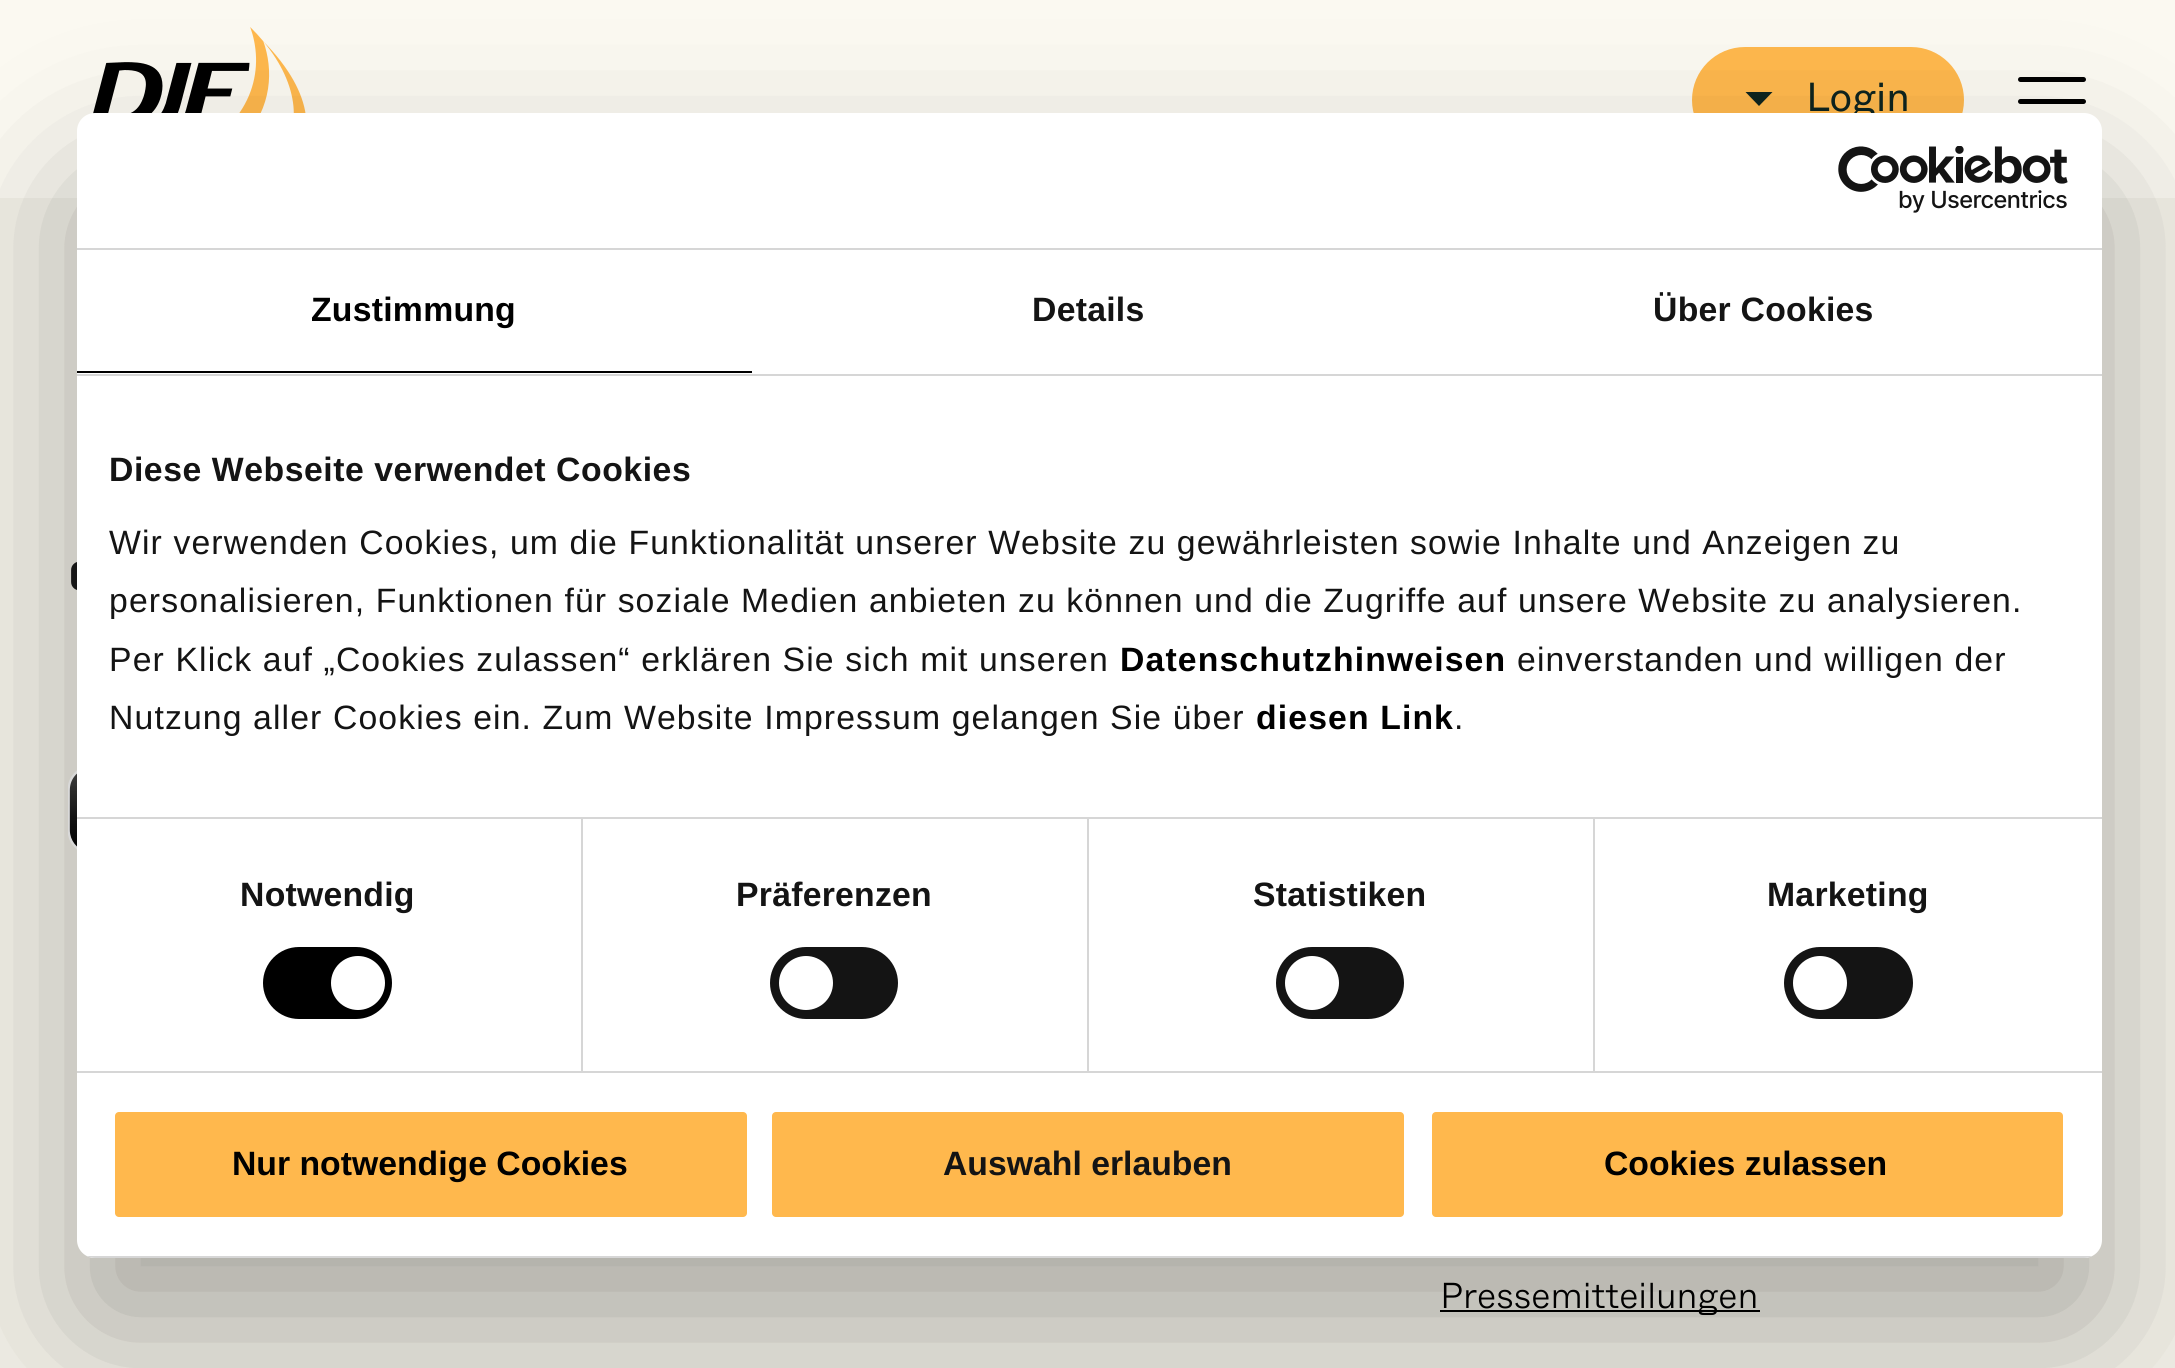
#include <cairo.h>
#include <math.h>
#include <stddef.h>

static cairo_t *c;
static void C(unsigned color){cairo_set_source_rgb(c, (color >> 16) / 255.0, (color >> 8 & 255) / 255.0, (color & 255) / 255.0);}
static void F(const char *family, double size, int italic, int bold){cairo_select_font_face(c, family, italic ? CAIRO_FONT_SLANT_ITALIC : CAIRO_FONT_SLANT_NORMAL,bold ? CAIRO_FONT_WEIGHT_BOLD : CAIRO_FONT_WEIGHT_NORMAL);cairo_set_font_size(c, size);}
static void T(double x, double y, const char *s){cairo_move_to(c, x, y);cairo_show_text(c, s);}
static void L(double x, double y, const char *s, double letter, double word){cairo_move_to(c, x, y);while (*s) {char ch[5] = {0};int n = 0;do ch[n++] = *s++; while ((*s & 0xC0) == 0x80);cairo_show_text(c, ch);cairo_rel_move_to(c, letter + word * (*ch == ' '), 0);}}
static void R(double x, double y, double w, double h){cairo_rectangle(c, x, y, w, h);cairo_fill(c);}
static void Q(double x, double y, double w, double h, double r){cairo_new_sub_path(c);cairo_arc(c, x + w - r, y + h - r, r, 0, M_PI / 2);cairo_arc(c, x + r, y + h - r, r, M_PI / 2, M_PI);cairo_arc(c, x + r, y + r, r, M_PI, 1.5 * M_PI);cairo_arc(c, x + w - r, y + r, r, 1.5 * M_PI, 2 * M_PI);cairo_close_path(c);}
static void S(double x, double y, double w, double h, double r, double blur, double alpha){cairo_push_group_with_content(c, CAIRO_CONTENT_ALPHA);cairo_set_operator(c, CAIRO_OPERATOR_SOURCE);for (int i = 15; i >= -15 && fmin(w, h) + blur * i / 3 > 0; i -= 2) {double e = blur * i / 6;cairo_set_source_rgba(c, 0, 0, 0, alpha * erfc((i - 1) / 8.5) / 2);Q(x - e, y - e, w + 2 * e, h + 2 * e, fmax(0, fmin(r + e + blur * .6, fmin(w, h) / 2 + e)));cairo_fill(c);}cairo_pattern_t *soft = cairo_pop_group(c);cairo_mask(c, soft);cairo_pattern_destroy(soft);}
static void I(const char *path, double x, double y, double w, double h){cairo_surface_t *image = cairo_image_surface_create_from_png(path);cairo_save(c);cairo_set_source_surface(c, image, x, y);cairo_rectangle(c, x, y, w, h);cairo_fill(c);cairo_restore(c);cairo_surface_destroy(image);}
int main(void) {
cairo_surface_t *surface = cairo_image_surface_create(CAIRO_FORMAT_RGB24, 2175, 1368);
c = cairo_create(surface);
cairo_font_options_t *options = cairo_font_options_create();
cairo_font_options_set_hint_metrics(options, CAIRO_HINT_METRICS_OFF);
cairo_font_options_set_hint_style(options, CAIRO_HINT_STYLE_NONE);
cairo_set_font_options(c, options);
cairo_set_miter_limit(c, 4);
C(0xf2f0e7);
cairo_paint(c);
C(0xfbf9f1);
R(0,0,2175,198);
I("1.png",93,27,213,87);
C(0x000000);
Q(2018,77,68,5,2.5);
cairo_fill(c);
Q(2018,99,68,5,2.5);
cairo_fill(c);
C(0xffb84d);
Q(1692,47,272,106,53);
cairo_fill(c);
C(0x0e241e);
cairo_new_path(c);
cairo_move_to(c,1759,106);
cairo_line_to(c,1745.5,92);
cairo_line_to(c,1772.5,92);
cairo_close_path(c);
cairo_fill(c);
F("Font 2 Light",40.5,0,0);
T(1806,111,"Login");
I("3.png",71,562,6,28);
I("4.png",68,770,9,80);
C(0x000000);
R(1440,1310,320,2);
C(0x000000);
S(77,185,2025,1145,18,76.5,.3);
C(0xffffff);
Q(77,113,2025,1145,18);
cairo_fill(c);
C(0xd6d6d6);
R(77,248,2025,2);
I("2.png",1838,146,230,67);
R(77,374,2025,2);
C(0x000000);
R(77,371,675,2);
F("Liberation Sans",33.75,0,1);
L(311,321,"Zustimmung",.25,0);
C(0x141414);
L(1032,321,"Details",.25,0);
L(1653,321,"Über Cookies",.25,0);
C(0xd6d6d6);
R(77,817,2025,2);
C(0x141414);
L(109,481,"Diese Webseite verwendet Cookies",.55,0);
F("Liberation Sans",33.75,0,0);
L(109,554,"Wir verwenden Cookies, um die Funktionalität unserer Website zu gewährleisten sowie Inhalte und Anzeigen zu",1.12,0);
L(109,612,"personalisieren, Funktionen für soziale Medien anbieten zu können und die Zugriffe auf unsere Website zu analysieren.",1.12,0);
L(109,671,"Per Klick auf „Cookies zulassen“ erklären Sie sich mit unseren",1.12,0);
F("Liberation Sans",33.75,0,1);
C(0x000000);
L(1120,671,"Datenschutzhinweisen",1.12,0);
F("Liberation Sans",33.75,0,0);
C(0x141414);
L(1517,671,"einverstanden und willigen der",1.12,0);
L(109,729,"Nutzung aller Cookies ein. Zum Website Impressum gelangen Sie über",1.12,0);
F("Liberation Sans",33.75,0,1);
C(0x000000);
L(1256,729,"diesen Link",1.12,0);
F("Liberation Sans",33.75,0,0);
C(0x141414);
L(1454,729,".",1.12,0);
C(0xd6d6d6);
R(77,1071,2025,2);
R(581,819,2,252);
F("Liberation Sans",33.75,0,1);
C(0x141414);
L(240,906,"Notwendig",.25,0);
C(0x000000);
Q(263,947,129,72,36);
cairo_fill(c);
C(0xffffff);
cairo_arc(c,358,983,27,0,2 * M_PI);
cairo_fill(c);
C(0xd6d6d6);
R(1087,819,2,252);
C(0x141414);
L(736,906,"Präferenzen",.25,0);
Q(770,947,128,72,36);
cairo_fill(c);
C(0xffffff);
cairo_arc(c,806,983,27,0,2 * M_PI);
cairo_fill(c);
C(0xd6d6d6);
R(1593,819,2,252);
C(0x141414);
L(1253,906,"Statistiken",.25,0);
Q(1276,947,128,72,36);
cairo_fill(c);
C(0xffffff);
cairo_arc(c,1312,983,27,0,2 * M_PI);
cairo_fill(c);
C(0x141414);
L(1767,906,"Marketing",.25,0);
Q(1784,947,129,72,36);
cairo_fill(c);
C(0xffffff);
cairo_arc(c,1820,983,27,0,2 * M_PI);
cairo_fill(c);
cairo_save(c);
Q(77,113,2025,1145,18);
cairo_clip(c);
C(0xd6d6d6);
R(87,1256,2005,2);
cairo_restore(c);
C(0xffb84d);
Q(112.5,1109.5,637,110,6.5);
cairo_fill_preserve(c);
C(0xffffff);
cairo_set_line_width(c,5);
cairo_stroke(c);
C(0x000000);
T(232,1175,"Nur notwendige Cookies");
C(0xffb84d);
Q(769.5,1109.5,637,110,6.5);
cairo_fill_preserve(c);
C(0xffffff);
cairo_stroke(c);
C(0x141414);
T(943,1175,"Auswahl erlauben");
C(0xffb84d);
Q(1429.5,1109.5,636,110,6.5);
cairo_fill_preserve(c);
C(0xffffff);
cairo_stroke(c);
C(0x000000);
T(1604,1175,"Cookies zulassen");
F("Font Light",36,0,0);
T(1440,1308,"Pressemitteilungen");
cairo_surface_write_to_png(surface, "o.png");
cairo_font_options_destroy(options);
cairo_destroy(c);
cairo_surface_destroy(surface);
return 0;
}
